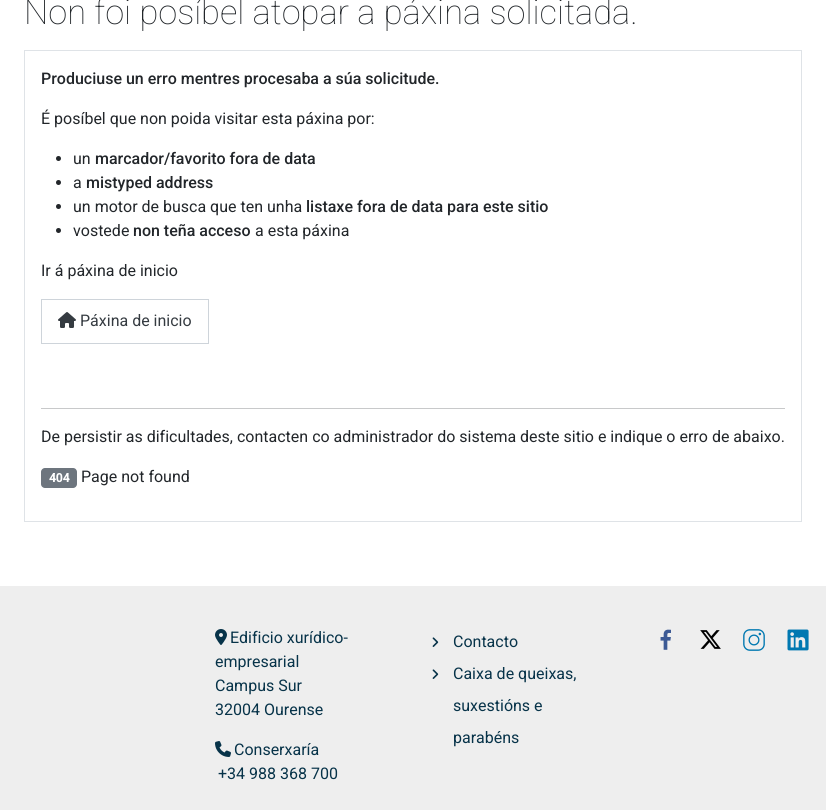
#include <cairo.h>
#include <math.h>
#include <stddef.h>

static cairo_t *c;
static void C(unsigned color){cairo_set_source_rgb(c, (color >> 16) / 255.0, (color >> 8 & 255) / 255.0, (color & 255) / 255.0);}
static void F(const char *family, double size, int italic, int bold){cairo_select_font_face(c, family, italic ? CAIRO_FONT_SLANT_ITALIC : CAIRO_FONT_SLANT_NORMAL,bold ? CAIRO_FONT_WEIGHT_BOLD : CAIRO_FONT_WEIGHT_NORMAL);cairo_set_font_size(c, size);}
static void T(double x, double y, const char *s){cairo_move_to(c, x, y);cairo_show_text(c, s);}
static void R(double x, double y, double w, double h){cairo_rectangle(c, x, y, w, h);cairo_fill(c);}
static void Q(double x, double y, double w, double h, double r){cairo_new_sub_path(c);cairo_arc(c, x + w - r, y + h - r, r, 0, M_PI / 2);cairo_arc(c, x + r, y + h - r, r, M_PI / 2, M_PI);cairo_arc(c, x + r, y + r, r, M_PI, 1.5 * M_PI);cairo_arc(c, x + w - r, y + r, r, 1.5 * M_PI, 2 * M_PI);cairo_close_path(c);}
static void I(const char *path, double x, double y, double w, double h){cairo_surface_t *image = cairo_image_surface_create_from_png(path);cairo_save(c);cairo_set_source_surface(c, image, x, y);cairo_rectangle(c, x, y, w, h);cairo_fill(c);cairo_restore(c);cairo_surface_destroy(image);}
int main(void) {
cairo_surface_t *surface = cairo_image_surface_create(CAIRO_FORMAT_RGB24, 826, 810);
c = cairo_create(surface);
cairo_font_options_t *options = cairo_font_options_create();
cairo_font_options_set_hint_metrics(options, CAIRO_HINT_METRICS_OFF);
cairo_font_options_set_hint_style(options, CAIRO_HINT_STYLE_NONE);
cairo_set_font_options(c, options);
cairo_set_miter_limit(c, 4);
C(0xffffff);
cairo_paint(c);
F("Roboto Thin",34.4,0,0);
C(0x22262a);
T(24,24,"Non foi posíbel atopar a páxina solicitada.");
cairo_rectangle(c,24.5,50.5,777,471);
C(0xdfe3e7);
cairo_set_line_width(c,1);
cairo_stroke(c);
F("Roboto Medium",16,0,0);
C(0x22262a);
T(41,84,"Produciuse un erro mentres procesaba a súa solicitude.");
F("Roboto",16,0,0);
T(41,124,"É posíbel que non poida visitar esta páxina por:");
cairo_new_path(c);
cairo_arc(c,58.5,158.5,2.5,0,2 * M_PI);
cairo_fill(c);
T(73,164,"un");
F("Roboto Medium",16,0,0);
T(95,164,"marcador/favorito fora de data");
cairo_new_path(c);
cairo_arc(c,58.5,182.5,2.5,0,2 * M_PI);
cairo_fill(c);
F("Roboto",16,0,0);
T(73,188,"a");
F("Roboto Medium",16,0,0);
T(86,188,"mistyped address");
cairo_new_path(c);
cairo_arc(c,58.5,206.5,2.5,0,2 * M_PI);
cairo_fill(c);
F("Roboto",16,0,0);
T(73,212,"un motor de busca que ten unha");
F("Roboto Medium",16,0,0);
T(306,212,"listaxe fora de data para este sitio");
cairo_new_path(c);
cairo_arc(c,58.5,230.5,2.5,0,2 * M_PI);
cairo_fill(c);
F("Roboto",16,0,0);
T(73,236,"vostede");
F("Roboto Medium",16,0,0);
T(133,236,"non teña acceso");
F("Roboto",16,0,0);
T(255,236,"a esta páxina");
T(41,276,"Ir á páxina de inicio");
cairo_rectangle(c,41.5,299.5,167,44);
C(0xced4da);
cairo_stroke(c);
I("1.png",58,312,18,16);
C(0x353b41);
T(80,326,"Páxina de inicio");
C(0xc8c9ca);
R(41,408,744,1);
C(0x22262a);
T(41,442,"De persistir as dificultades, contacten co administrador do sistema deste sitio e indique o erro de abaixo.");
C(0x6d757e);
Q(41,468,36,20,4);
cairo_fill(c);
F("Roboto",12,0,1);
C(0xffffff);
T(49,482,"404");
F("Roboto",16,0,0);
C(0x22262a);
T(81,482,"Page not found");
C(0xeeeeee);
R(0,586,826,224);
I("2.png",215,629,12,16);
C(0x073349);
T(230,643,"Edificio xurídico-");
T(215,667,"empresarial");
T(215,691,"Campus Sur");
T(215,715,"32004 Ourense");
I("3.png",215,741,16,16);
T(234,755,"Conserxaría");
T(218,779,"+34 988 368 700");
I("4.png",432,637,7,10);
T(453,647,"Contacto");
I("4.png",432,669,7,10);
T(453,679,"Caixa de queixas,");
T(453,711,"suxestións e");
T(453,743,"parabéns");
I("5.png",660,629,11,21);
I("6.png",700,630,21,19);
I("7.png",743,629,22,22);
I("8.png",787,629,22,22);
cairo_surface_write_to_png(surface, "o.png");
cairo_font_options_destroy(options);
cairo_destroy(c);
cairo_surface_destroy(surface);
return 0;
}
